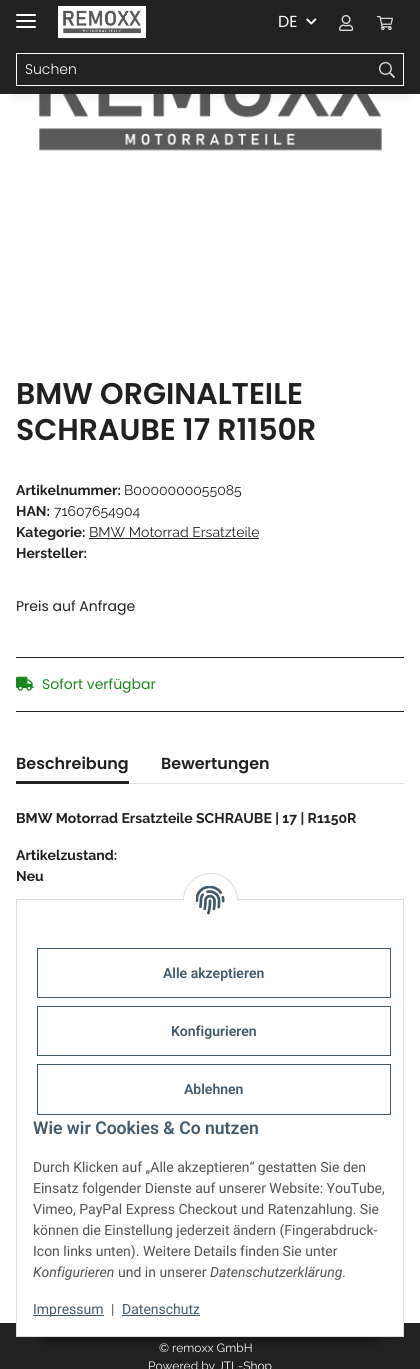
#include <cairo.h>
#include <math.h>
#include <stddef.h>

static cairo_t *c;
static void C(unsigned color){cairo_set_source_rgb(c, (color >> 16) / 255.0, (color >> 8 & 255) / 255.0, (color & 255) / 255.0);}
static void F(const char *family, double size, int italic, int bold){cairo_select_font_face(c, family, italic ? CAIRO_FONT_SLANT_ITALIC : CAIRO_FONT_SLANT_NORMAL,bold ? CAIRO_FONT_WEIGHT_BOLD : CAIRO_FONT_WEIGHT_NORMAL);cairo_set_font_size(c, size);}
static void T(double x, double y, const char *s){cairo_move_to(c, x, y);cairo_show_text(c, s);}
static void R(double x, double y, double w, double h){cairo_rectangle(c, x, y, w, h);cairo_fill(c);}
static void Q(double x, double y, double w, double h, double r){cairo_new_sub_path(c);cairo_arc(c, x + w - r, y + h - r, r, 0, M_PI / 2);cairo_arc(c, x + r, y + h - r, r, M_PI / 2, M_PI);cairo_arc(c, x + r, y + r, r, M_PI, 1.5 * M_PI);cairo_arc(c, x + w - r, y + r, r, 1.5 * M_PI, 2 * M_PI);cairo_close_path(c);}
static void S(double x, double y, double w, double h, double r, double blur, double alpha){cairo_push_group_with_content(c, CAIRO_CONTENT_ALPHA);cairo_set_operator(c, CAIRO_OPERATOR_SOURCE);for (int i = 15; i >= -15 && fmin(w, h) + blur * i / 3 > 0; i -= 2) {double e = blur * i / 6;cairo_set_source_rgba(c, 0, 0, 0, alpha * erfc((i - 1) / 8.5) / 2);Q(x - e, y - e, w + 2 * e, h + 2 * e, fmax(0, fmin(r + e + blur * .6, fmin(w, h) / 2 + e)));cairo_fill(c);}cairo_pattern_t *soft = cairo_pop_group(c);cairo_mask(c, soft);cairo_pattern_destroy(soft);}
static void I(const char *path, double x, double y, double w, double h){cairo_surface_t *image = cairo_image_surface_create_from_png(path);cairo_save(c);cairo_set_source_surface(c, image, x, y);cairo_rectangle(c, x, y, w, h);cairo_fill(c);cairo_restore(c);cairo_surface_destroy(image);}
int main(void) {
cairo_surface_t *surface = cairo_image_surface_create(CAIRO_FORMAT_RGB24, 420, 1369);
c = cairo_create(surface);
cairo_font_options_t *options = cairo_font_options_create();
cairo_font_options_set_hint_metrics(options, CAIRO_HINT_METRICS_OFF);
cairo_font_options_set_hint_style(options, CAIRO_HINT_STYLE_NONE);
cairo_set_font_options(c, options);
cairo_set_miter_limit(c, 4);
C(0xffffff);
cairo_paint(c);
I("6.png",38,94,344,57);
C(0x000000);
S(12,28,396,70,0,4.5,.06);
C(0x212121);
R(0,0,420,94);
C(0xffffff);
Q(16,20,20,2,1);
cairo_fill(c);
Q(16,14,20,2,1);
cairo_fill(c);
Q(16,26,20,2,1);
cairo_fill(c);
I("1.png",58,6,88,33);
F("Poppins",16,0,0);
T(278,27,"DE");
I("2.png",306,18,11,7);
I("3.png",339,15,15,16);
I("4.png",377,16,16,14);
cairo_rectangle(c,16.5,53.5,355,32);
cairo_set_line_width(c,1);
cairo_stroke(c);
F("Poppins Light",14,0,0);
T(25,74,"Suchen");
C(0x212121);
R(371,54,1,31);
C(0xffffff);
R(371,53,33,1);
R(403,53,1,33);
R(371,85,33,1);
I("5.png",379,62,16,16);
F("Poppins SemiBold",30,0,0);
C(0x212121);
T(16,404,"BMW ORGINALTEILE");
T(16,440,"SCHRAUBE 17 R1150R");
F("Raleway",14,0,1);
T(16,495,"Artikelnummer:");
F("Raleway",14,0,0);
T(124,495,"B0000000055085");
F("Raleway",14,0,1);
T(16,516,"HAN:");
F("Raleway",14,0,0);
T(54,516,"71607654904");
F("Raleway",14,0,1);
T(16,537,"Kategorie:");
F("Raleway",14,0,0);
T(89,537,"BMW Motorrad Ersatzteile");
R(89,538,170,1);
F("Raleway",14,0,1);
T(16,558,"Hersteller:");
F("Poppins",14,0,0);
T(16,611,"Preis auf Anfrage");
R(16,657,388,1);
R(16,711,388,1);
I("7.png",16,676,18,15);
C(0x1c871e);
T(42,689,"Sofort verfügbar");
C(0xdee2e6);
R(129,783,275,1);
F("Poppins SemiBold",16,0,0);
C(0x212121);
T(16,769,"Beschreibung");
R(16,781,113,3);
T(161,769,"Bewertungen");
F("Raleway",14,0,1);
T(16,823,"BMW Motorrad Ersatzteile SCHRAUBE | 17 | R1150R");
T(16,860,"Artikelzustand:");
T(16,881,"Neu");
R(0,1323,420,46);
C(0x000000);
S(36,1308,348,32,16,5,.45);
C(0xffffff);
R(17,1298,386,38);
cairo_rectangle(c,16.5,899.5,387,437);
C(0xdddddd);
cairo_stroke(c);
C(0xffffff);
cairo_arc(c,210.5,900.5,27,0,2 * M_PI);
cairo_fill_preserve(c);
C(0xdddddd);
cairo_stroke(c);
C(0xffffff);
R(183,901,55,27);
I("8.png",196,886,29,29);
cairo_rectangle(c,37.5,948.5,353,49);
C(0x435a6b);
cairo_stroke(c);
F("Roboto SemiBold",14,0,0);
T(163,978,"Alle akzeptieren");
cairo_rectangle(c,37.5,1006.5,353,49);
cairo_stroke(c);
T(171,1036,"Konfigurieren");
cairo_rectangle(c,37.5,1064.5,353,50);
cairo_stroke(c);
T(184,1094,"Ablehnen");
F("Roboto SemiBold",17.6,0,0);
T(33,1134,"Wie wir Cookies & Co nutzen");
F("Roboto",14,0,0);
C(0x525252);
T(33,1172,"Durch Klicken auf „Alle akzeptieren“ gestatten Sie den");
T(33,1193,"Einsatz folgender Dienste auf unserer Website: YouTube,");
T(33,1214,"Vimeo, PayPal Express Checkout und Ratenzahlung. Sie");
T(33,1235,"können die Einstellung jederzeit ändern (Fingerabdruck-");
T(33,1256,"Icon links unten). Weitere Details finden Sie unter");
F("Roboto",14,1,0);
T(33,1277,"Konfigurieren");
F("Roboto",14,0,0);
T(118,1277,"und in unserer");
F("Roboto",14,1,0);
T(210,1277,"Datenschutzerklärung");
F("Roboto",14,0,0);
T(342,1277,".");
C(0x435a6b);
R(33,1315,71,1);
T(33,1314,"Impressum");
C(0x525252);
T(111,1314,"|");
C(0x435a6b);
T(122,1314,"Datenschutz");
R(122,1315,78,1);
F("Raleway",12,0,0);
C(0xf5f5f5);
T(159,1352,"© remoxx GmbH");
T(148,1370,"Powered by");
C(0xffffff);
T(218,1370,"JTL-Shop");
cairo_surface_write_to_png(surface, "o.png");
cairo_font_options_destroy(options);
cairo_destroy(c);
cairo_surface_destroy(surface);
return 0;
}
